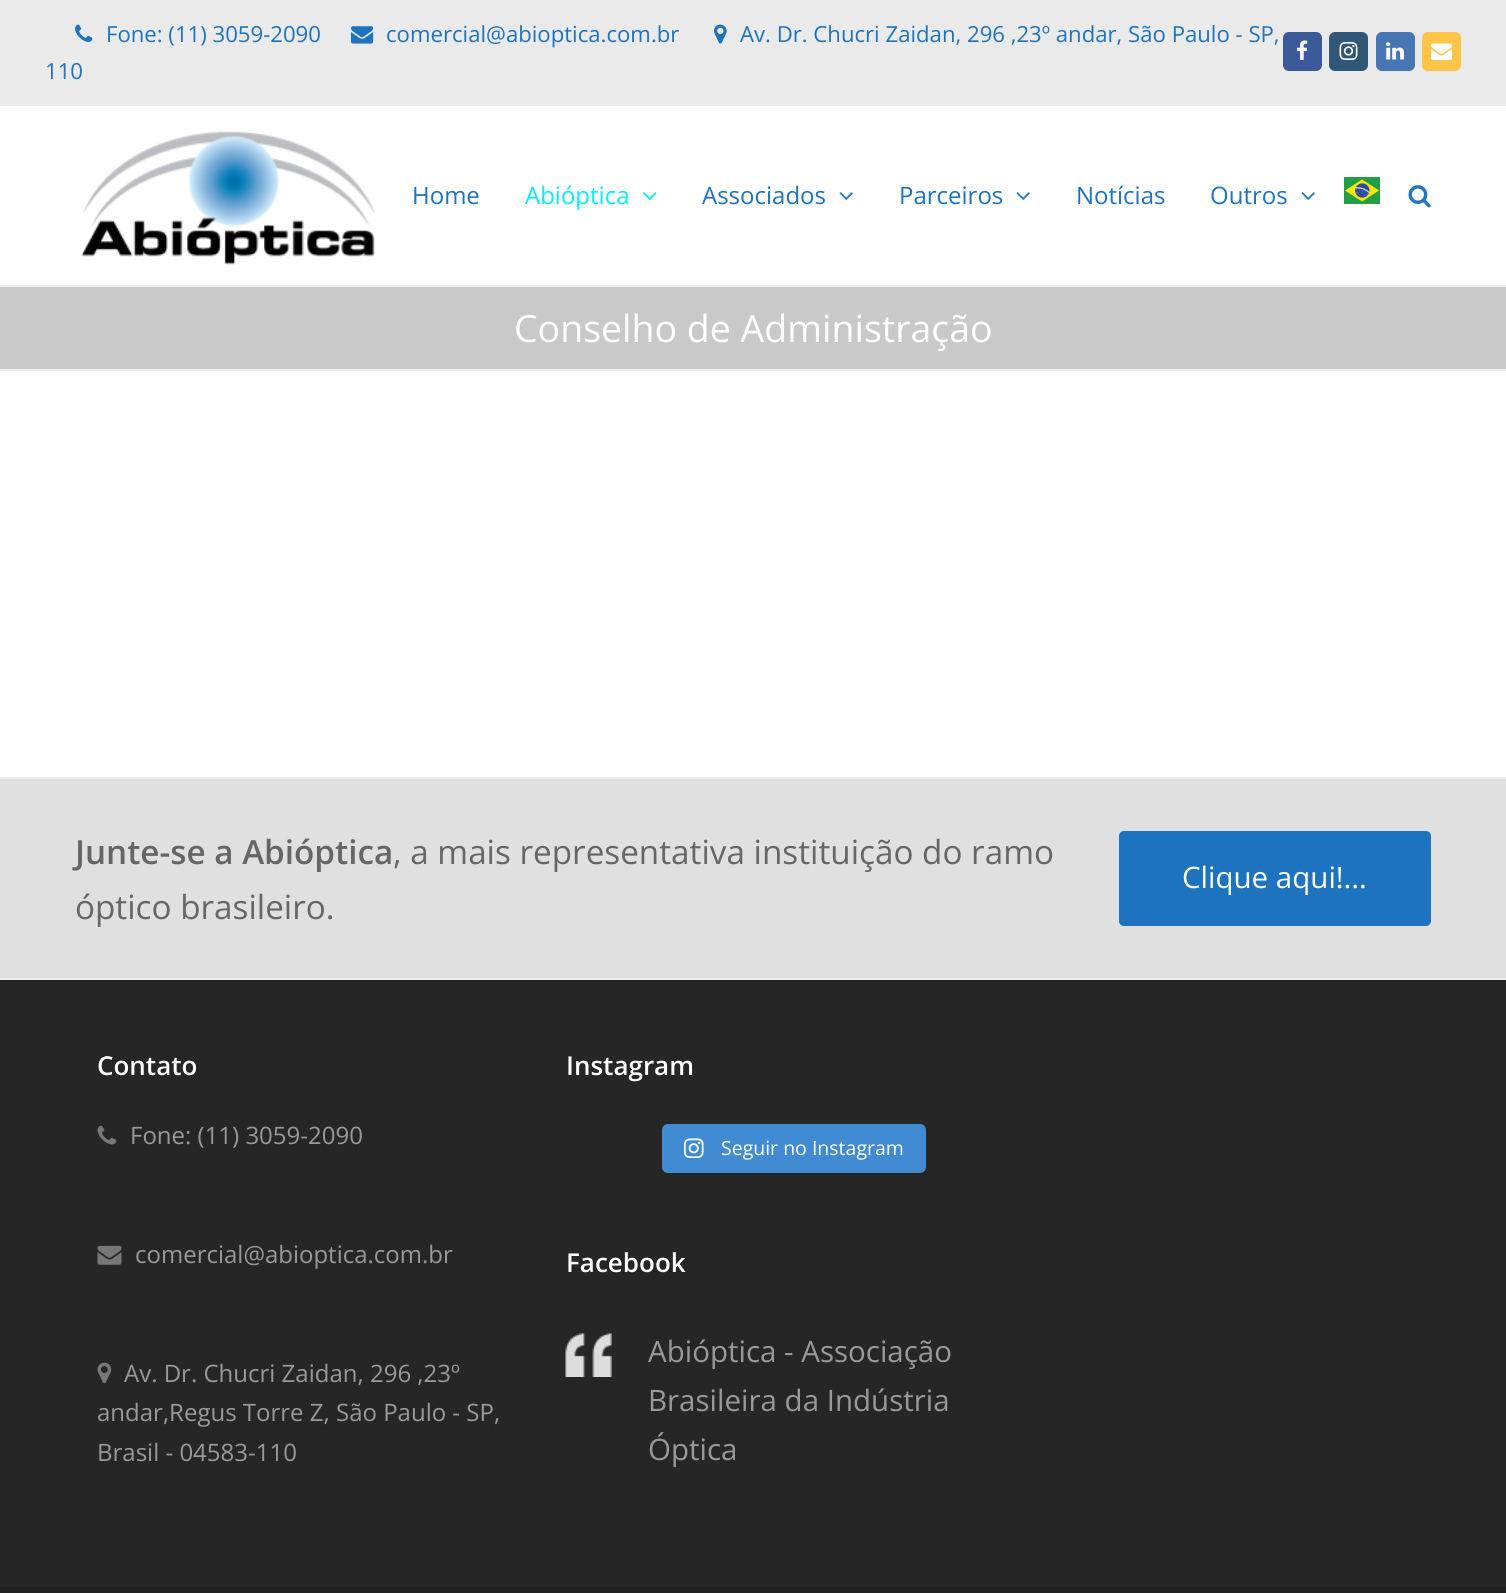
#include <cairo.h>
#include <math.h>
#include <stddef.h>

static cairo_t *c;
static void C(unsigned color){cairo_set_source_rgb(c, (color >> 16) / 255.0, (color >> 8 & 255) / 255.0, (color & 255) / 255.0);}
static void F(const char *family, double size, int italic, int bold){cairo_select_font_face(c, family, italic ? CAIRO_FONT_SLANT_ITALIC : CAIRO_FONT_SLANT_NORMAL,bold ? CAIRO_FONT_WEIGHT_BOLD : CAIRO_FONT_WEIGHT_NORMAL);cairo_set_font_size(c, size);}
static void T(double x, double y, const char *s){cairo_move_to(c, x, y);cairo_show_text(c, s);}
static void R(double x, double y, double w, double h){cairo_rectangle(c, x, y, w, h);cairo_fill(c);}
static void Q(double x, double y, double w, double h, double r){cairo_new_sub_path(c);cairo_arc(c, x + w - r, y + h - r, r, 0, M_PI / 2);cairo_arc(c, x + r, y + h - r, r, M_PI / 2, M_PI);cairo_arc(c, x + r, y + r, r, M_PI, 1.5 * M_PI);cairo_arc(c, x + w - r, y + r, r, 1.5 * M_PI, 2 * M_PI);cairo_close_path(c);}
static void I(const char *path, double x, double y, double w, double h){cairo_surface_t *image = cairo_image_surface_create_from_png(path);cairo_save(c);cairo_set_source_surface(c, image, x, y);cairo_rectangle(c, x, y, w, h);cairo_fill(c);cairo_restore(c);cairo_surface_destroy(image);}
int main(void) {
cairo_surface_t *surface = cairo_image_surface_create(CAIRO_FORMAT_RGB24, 1506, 1593);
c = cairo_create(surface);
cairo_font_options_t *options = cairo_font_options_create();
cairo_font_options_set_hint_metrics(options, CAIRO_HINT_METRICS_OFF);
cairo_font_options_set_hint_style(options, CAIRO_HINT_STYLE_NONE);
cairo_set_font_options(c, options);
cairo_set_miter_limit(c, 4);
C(0xffffff);
cairo_paint(c);
C(0xeaeaea);
R(0,0,1506,104);
C(0xeeeeee);
R(0,104,1506,2);
I("1.png",75,24,18,18);
F("Open Sans",22.15,0,0);
C(0x1e73be);
T(106,42,"Fone: (11) 3059-2090");
I("2.png",351,26,23,18);
T(386,42,"comercial@abioptica.com.br");
I("3.png",714,24,13,20);
T(740,42,"Av. Dr. Chucri Zaidan, 296 ,23º andar, São Paulo - SP,");
T(45,79,"110");
C(0x3b5998);
Q(1283,32,39,39,6);
cairo_fill(c);
I("4.png",1297,40,11,20);
C(0x305777);
Q(1329,32,39,39,6);
cairo_fill(c);
I("5.png",1339,42,19,18);
C(0x4875b4);
Q(1376,32,39,39,6);
cairo_fill(c);
I("6.png",1386,42,18,18);
C(0xffc548);
Q(1422,32,39,39,6);
cairo_fill(c);
I("7.png",1431,43,21,17);
I("8.png",81,131,294,134);
F("Open Sans",24,0,0);
C(0x1e73be);
T(412,204,"Home");
C(0x00eeff);
T(525,204,"Abióptica");
I("9.png",643,192,14,8);
C(0x1e73be);
T(702,204,"Associados");
I("10.png",839,192,14,8);
T(899,204,"Parceiros");
I("10.png",1016,192,14,8);
T(1076,204,"Notícias");
T(1210,204,"Outros");
I("10.png",1301,192,14,8);
I("11.png",1344,177,36,27);
I("12.png",1408,185,23,23);
C(0xc9c9c9);
R(0,287,1506,82);
C(0xeeeeee);
R(0,285,1506,2);
R(0,369,1506,2);
F("Open Sans",37.5,0,0);
C(0xffffff);
T(514,342,"Conselho de Administração");
C(0xe0e0e0);
R(0,779,1506,199);
C(0xeeeeee);
R(0,777,1506,2);
R(0,978,1506,2);
F("Open Sans SemiBold",33.25,0,0);
C(0x666666);
T(75,864,"Junte-se a Abióptica");
F("Open Sans",33.25,0,0);
T(393,864,", a mais representativa instituição do ramo");
T(75,919,"óptico brasileiro.");
C(0x1e73be);
Q(1119,831,312,95,5);
cairo_fill(c);
F("Open Sans",29.5,0,0);
C(0xffffff);
T(1182,888,"Clique aqui!...");
C(0x262626);
R(0,980,1506,607);
F("Open Sans SemiBold",26,0,0);
C(0xffffff);
T(97,1075,"Contato");
I("13.png",97,1125,20,20);
F("Open Sans",24,0,0);
C(0x999999);
T(130,1144,"Fone: (11) 3059-2090");
I("14.png",97,1245,25,20);
T(135,1263,"comercial@abioptica.com.br");
I("15.png",97,1362,15,22);
T(124,1382,"Av. Dr. Chucri Zaidan, 296 ,23º");
T(97,1421,"andar,Regus Torre Z, São Paulo - SP,");
T(97,1461,"Brasil - 04583-110");
F("Open Sans SemiBold",26,0,0);
C(0xffffff);
T(566,1075,"Instagram");
C(0x408bd1);
Q(662,1124,264,49,6);
cairo_fill(c);
I("16.png",683,1138,21,20);
F("Open Sans",19.5,0,0);
C(0xffffff);
T(721,1155,"Seguir no Instagram");
F("Open Sans SemiBold",26,0,0);
T(566,1272,"Facebook");
I("17.png",565,1333,47,44);
F("Open Sans",29.5,0,0);
C(0x999999);
T(648,1362,"Abióptica - Associação");
T(648,1411,"Brasileira da Indústria");
T(648,1460,"Óptica");
C(0x222222);
R(0,1587,1506,6);
cairo_surface_write_to_png(surface, "o.png");
cairo_font_options_destroy(options);
cairo_destroy(c);
cairo_surface_destroy(surface);
return 0;
}
